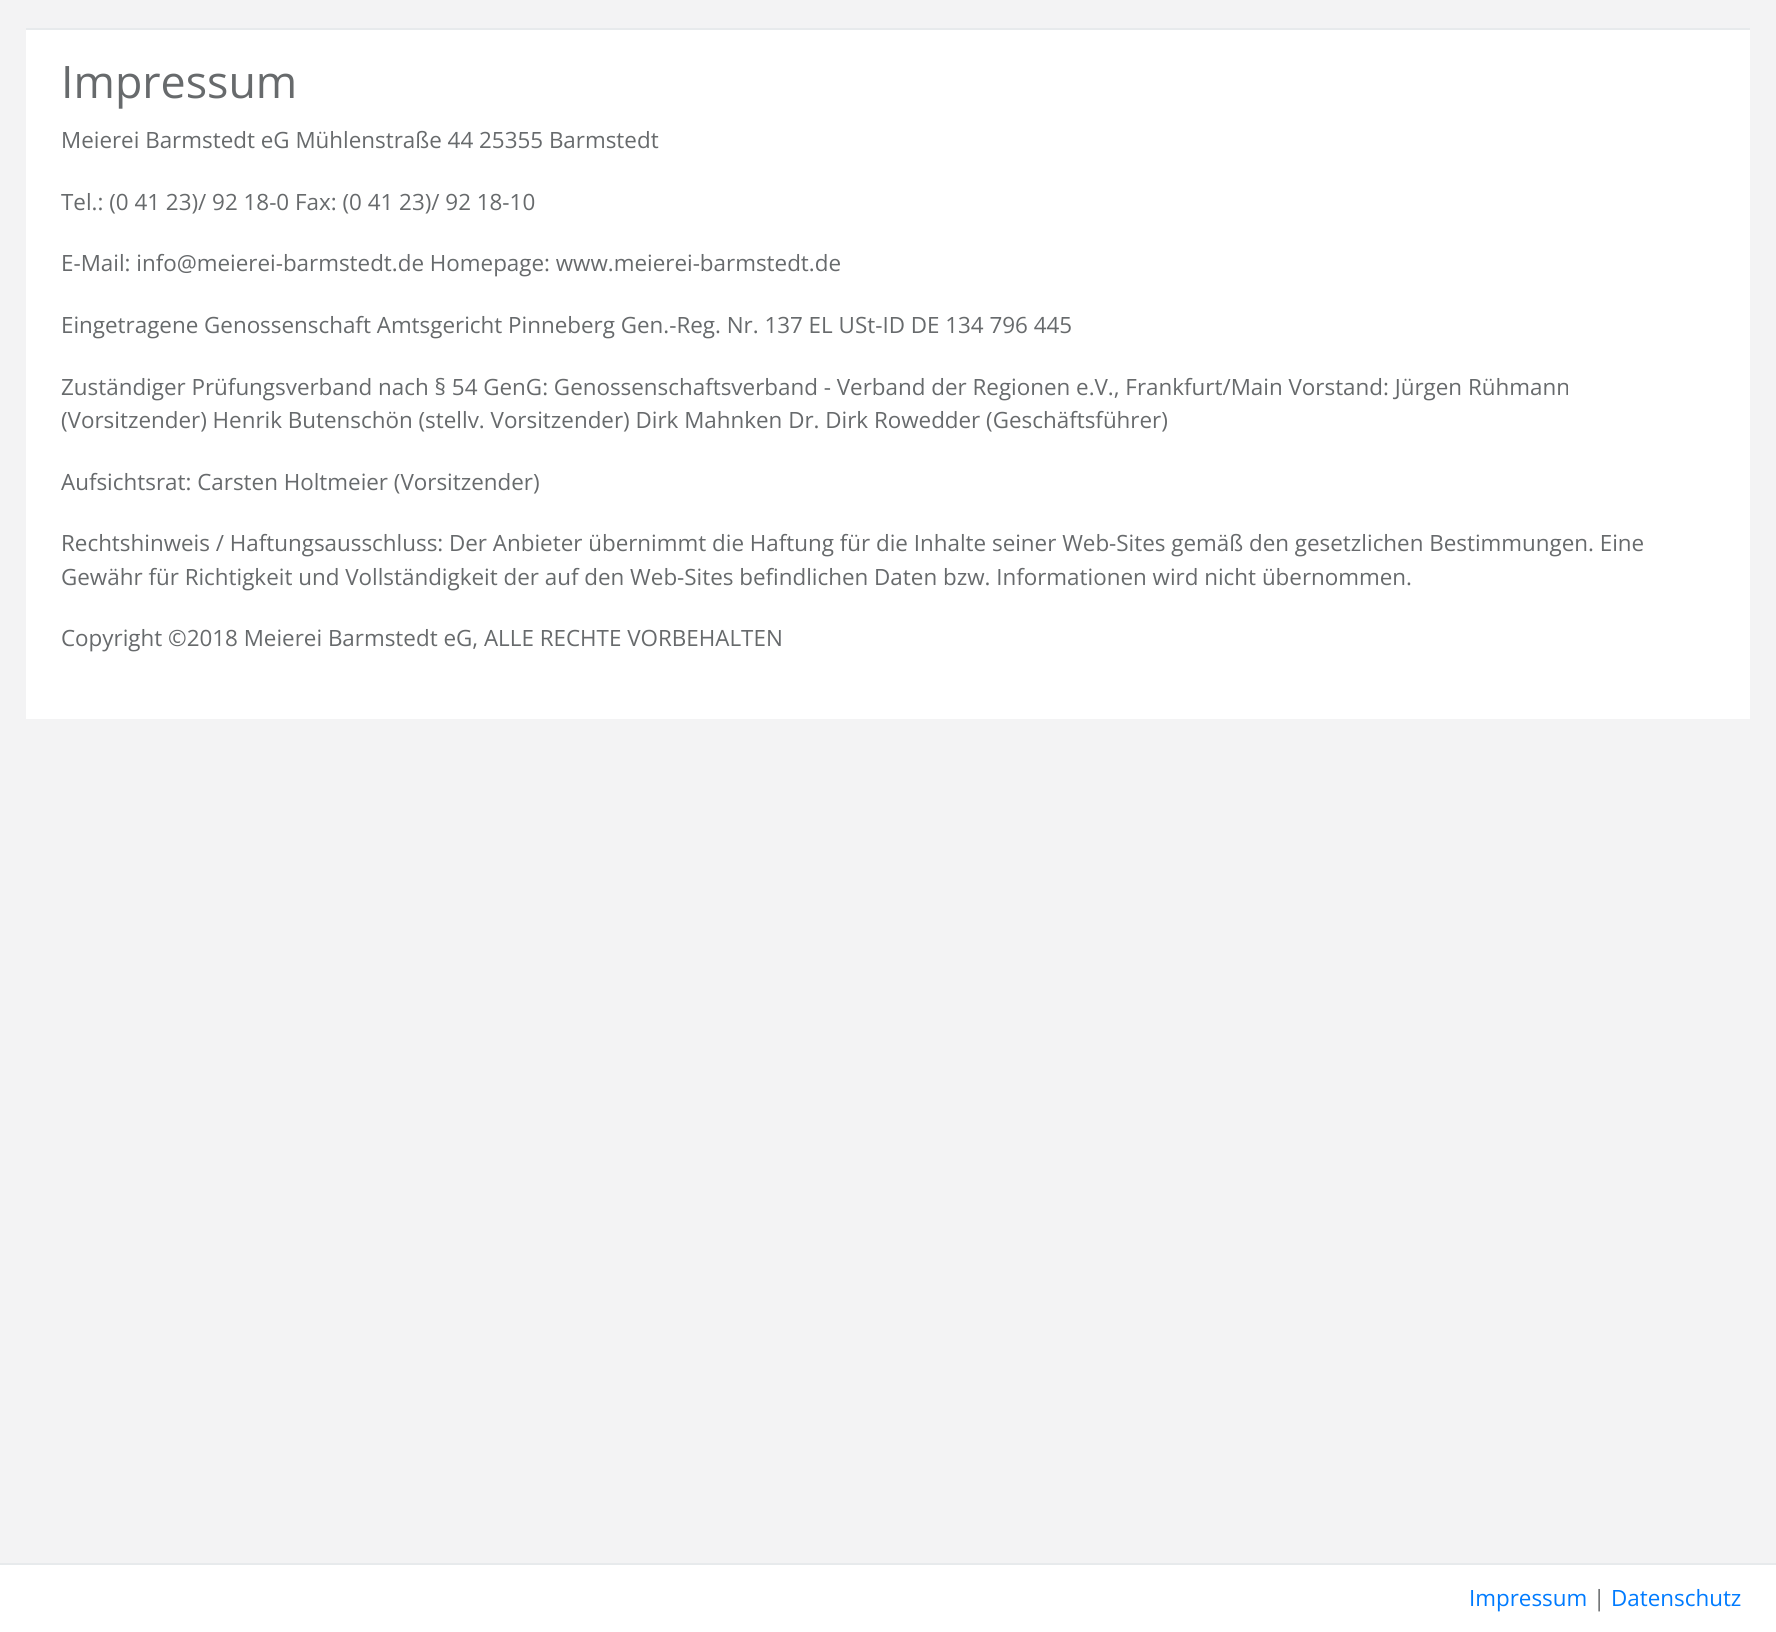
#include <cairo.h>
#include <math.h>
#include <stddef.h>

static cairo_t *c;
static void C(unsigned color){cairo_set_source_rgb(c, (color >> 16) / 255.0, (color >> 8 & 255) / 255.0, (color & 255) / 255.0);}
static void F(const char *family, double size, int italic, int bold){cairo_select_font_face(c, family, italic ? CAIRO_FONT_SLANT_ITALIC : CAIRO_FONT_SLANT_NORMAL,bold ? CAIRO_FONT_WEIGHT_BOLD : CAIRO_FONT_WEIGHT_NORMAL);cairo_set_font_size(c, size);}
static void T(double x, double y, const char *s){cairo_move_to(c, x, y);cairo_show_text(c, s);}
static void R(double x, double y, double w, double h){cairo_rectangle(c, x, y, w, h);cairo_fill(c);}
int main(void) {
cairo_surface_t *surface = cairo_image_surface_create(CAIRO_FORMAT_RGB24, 1776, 1632);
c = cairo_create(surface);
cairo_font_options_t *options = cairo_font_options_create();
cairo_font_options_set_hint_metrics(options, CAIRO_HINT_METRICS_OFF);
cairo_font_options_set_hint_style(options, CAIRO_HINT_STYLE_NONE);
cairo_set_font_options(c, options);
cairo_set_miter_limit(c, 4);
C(0xf3f3f4);
cairo_paint(c);
C(0xffffff);
R(26,30,1724,689);
C(0xe7eaec);
R(26,28,1724,2);
F("Open Sans",44.75,0,0);
C(0x676a6c);
T(61,98,"Impressum");
F("Open Sans",22.4,0,0);
T(61,148,"Meierei Barmstedt eG Mühlenstraße 44 25355 Barmstedt");
T(61,210,"Tel.: (0 41 23)/ 92 18-0 Fax: (0 41 23)/ 92 18-10");
T(61,271,"E-Mail: info@meierei-barmstedt.de Homepage: www.meierei-barmstedt.de");
T(61,333,"Eingetragene Genossenschaft Amtsgericht Pinneberg Gen.-Reg. Nr. 137 EL USt-ID DE 134 796 445");
T(61,395,"Zuständiger Prüfungsverband nach § 54 GenG: Genossenschaftsverband - Verband der Regionen e.V., Frankfurt/Main Vorstand: Jürgen Rühmann");
T(61,428,"(Vorsitzender) Henrik Butenschön (stellv. Vorsitzender) Dirk Mahnken Dr. Dirk Rowedder (Geschäftsführer)");
T(61,490,"Aufsichtsrat: Carsten Holtmeier (Vorsitzender)");
T(61,551,"Rechtshinweis / Haftungsausschluss: Der Anbieter übernimmt die Haftung für die Inhalte seiner Web-Sites gemäß den gesetzlichen Bestimmungen. Eine");
T(61,585,"Gewähr für Richtigkeit und Vollständigkeit der auf den Web-Sites befindlichen Daten bzw. Informationen wird nicht übernommen.");
T(61,646,"Copyright ©2018 Meierei Barmstedt eG, ALLE RECHTE VORBEHALTEN");
C(0xffffff);
R(0,1565,1776,67);
C(0xe7eaec);
R(0,1563,1776,2);
C(0x007bff);
T(1469,1606,"Impressum");
C(0x676a6c);
T(1593,1606,"|");
C(0x007bff);
T(1611,1606,"Datenschutz");
cairo_surface_write_to_png(surface, "o.png");
cairo_font_options_destroy(options);
cairo_destroy(c);
cairo_surface_destroy(surface);
return 0;
}
